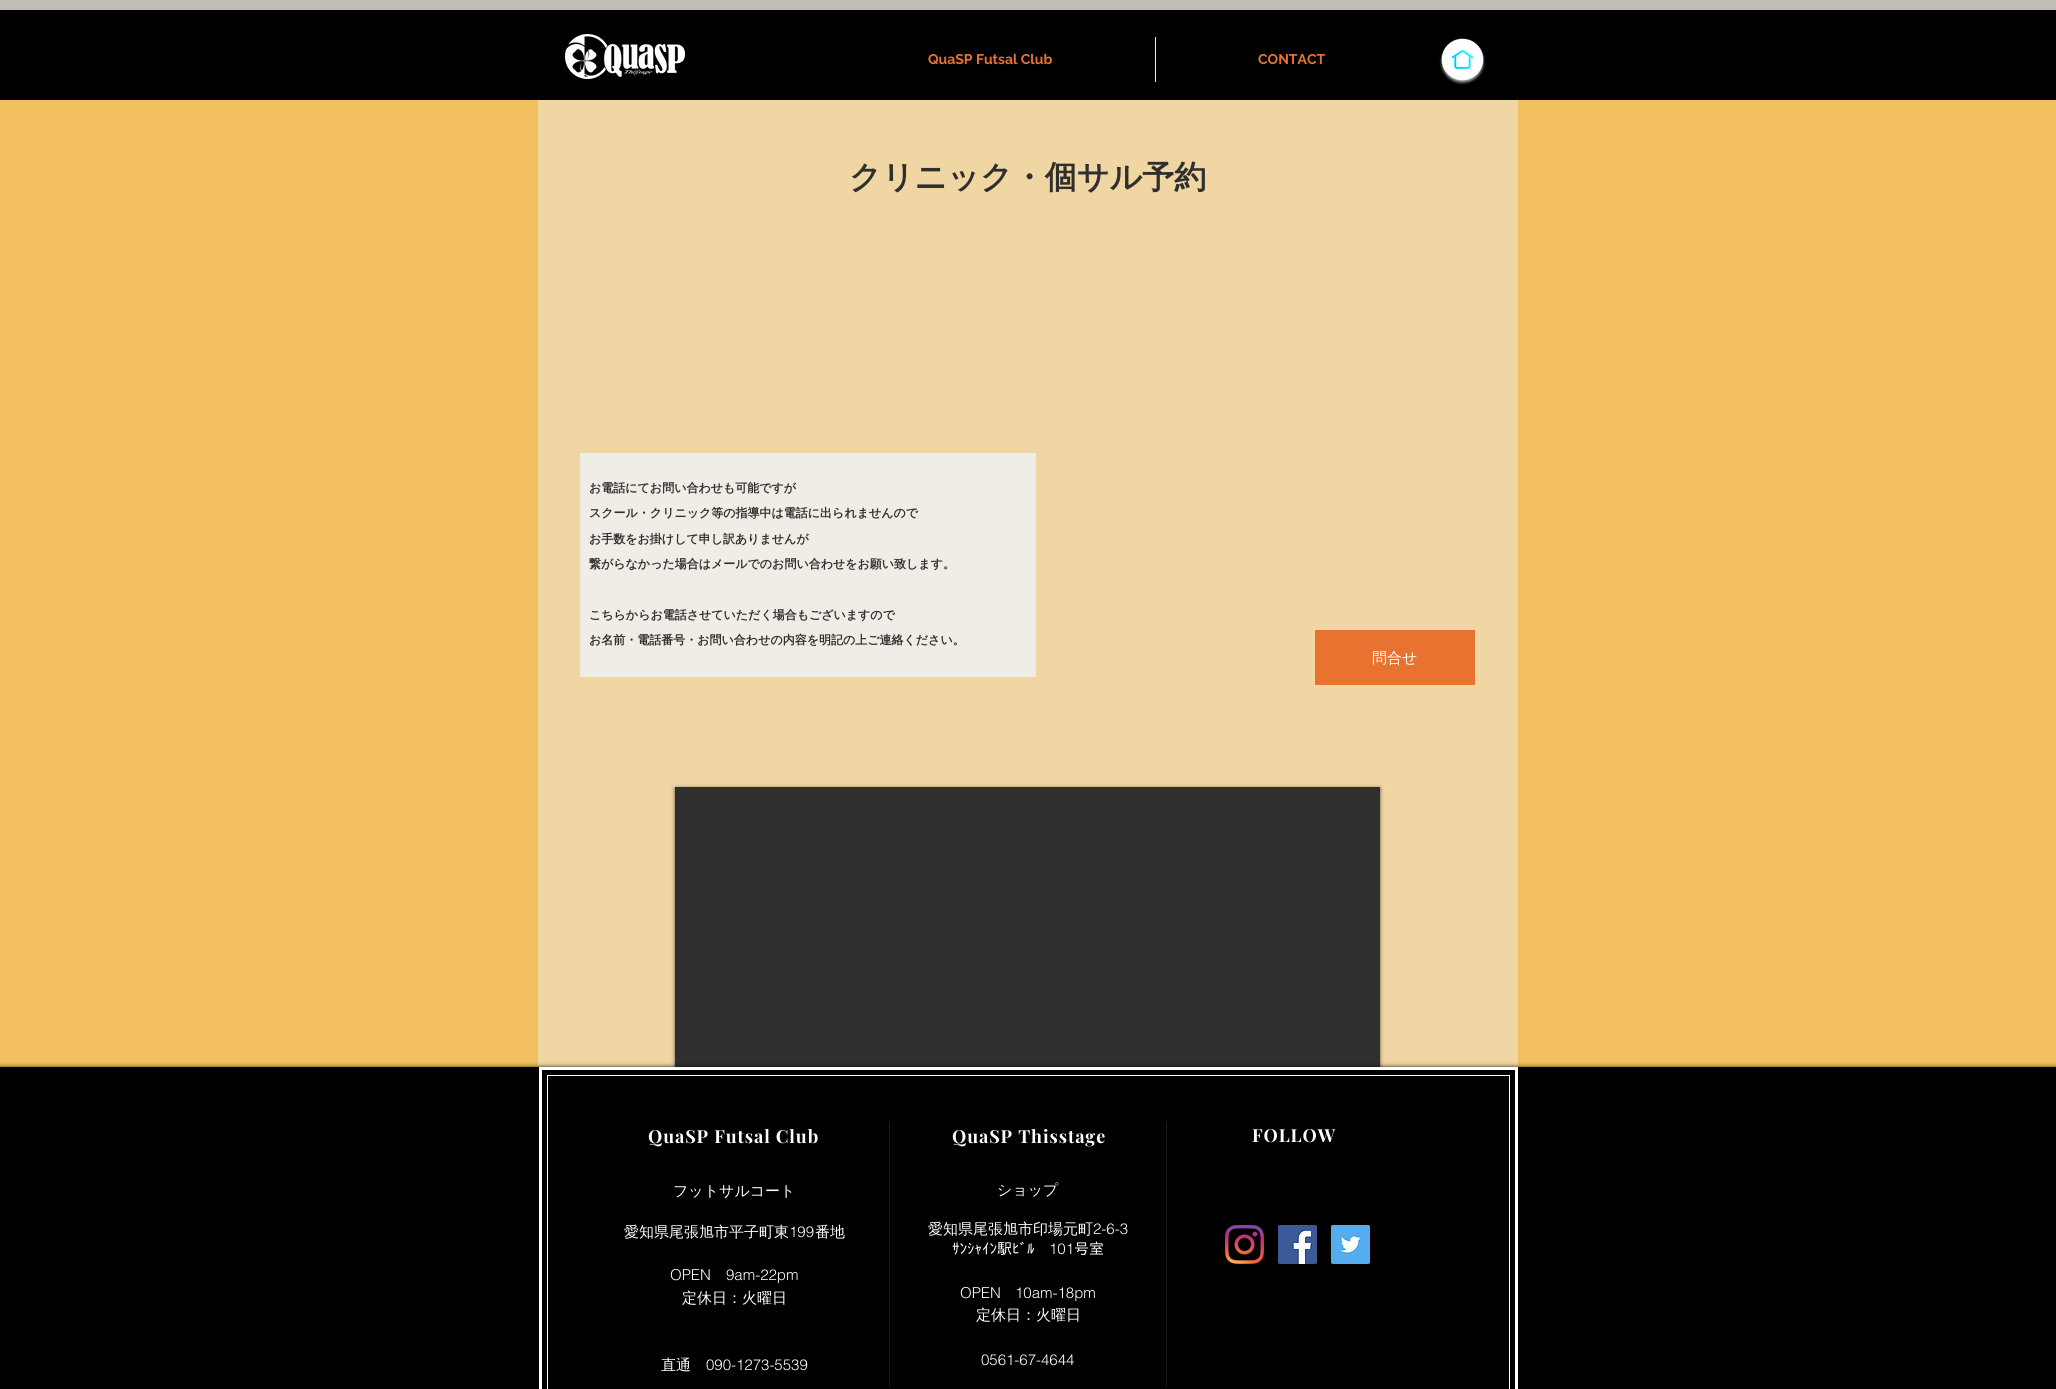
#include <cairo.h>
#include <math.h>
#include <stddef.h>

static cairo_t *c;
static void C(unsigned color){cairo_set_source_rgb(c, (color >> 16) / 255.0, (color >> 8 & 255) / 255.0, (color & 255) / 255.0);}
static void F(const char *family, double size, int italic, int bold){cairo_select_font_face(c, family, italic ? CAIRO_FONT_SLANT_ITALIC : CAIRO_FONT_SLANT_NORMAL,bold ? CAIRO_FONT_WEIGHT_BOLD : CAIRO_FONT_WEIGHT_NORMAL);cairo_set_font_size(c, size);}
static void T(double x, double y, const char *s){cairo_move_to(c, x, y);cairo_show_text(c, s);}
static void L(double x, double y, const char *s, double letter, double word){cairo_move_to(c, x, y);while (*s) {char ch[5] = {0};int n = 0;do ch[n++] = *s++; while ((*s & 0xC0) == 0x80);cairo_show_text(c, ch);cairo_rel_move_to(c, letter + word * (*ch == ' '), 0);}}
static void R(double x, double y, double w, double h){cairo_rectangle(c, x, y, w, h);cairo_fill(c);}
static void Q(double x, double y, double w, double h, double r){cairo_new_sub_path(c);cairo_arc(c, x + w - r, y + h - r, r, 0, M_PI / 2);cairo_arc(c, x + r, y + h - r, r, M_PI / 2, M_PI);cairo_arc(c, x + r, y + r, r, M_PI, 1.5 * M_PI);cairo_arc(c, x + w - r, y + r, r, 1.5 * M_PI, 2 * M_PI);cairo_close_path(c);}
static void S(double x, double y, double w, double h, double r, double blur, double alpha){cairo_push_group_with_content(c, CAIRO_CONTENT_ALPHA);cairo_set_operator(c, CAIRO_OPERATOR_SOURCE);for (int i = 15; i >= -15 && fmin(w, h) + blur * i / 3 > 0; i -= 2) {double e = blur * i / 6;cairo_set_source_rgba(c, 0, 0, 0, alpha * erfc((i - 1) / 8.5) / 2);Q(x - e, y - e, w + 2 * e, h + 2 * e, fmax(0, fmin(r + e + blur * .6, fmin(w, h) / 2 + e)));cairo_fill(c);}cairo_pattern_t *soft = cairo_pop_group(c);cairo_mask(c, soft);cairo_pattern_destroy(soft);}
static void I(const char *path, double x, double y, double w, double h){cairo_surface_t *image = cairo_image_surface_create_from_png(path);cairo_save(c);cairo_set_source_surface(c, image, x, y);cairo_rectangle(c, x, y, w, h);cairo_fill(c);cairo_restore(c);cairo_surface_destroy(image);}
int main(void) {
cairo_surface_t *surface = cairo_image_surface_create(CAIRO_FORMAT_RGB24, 2056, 1389);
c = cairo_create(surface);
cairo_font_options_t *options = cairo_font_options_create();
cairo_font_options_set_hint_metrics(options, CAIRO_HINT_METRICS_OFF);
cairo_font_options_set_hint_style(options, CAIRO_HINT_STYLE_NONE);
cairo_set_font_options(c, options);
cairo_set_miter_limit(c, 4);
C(0xf2bf5e);
cairo_paint(c);
C(0x000000);
R(0,10,2056,90);
C(0xc0bdb8);
R(0,0,2056,10);
I("1.png",565,34,120,45);
F("Raleway",14,0,1);
C(0xe87330);
T(928,64,"QuaSP Futsal Club");
C(0xf0ece6);
R(1155,37,1,45);
C(0xe87330);
T(1258,64,"CONTACT");
I("2.png",1439,38,47,47);
C(0xf0d6a3);
R(538,100,980,967);
F("WenQuanYi Zen Hei",32,0,1);
C(0x302f2e);
T(849,188,"クリニック・個サル予約");
C(0xf0ece6);
R(580,453,456,224);
F("WenQuanYi Zen Hei",12,0,1);
C(0x302f2e);
T(589,492,"お電話にてお問い合わせも可能ですが");
T(589,517,"スクール・クリニック等の指導中は電話に出られませんので");
T(589,543,"お手数をお掛けして申し訳ありませんが");
T(589,568,"繋がらなかった場合はメールでのお問い合わせをお願い致します。");
T(589,619,"こちらからお電話させていただく場合もございますので");
T(589,644,"お名前・電話番号・お問い合わせの内容を明記の上ご連絡ください。");
C(0xe87330);
R(1315,630,160,55);
F("WenQuanYi Zen Hei Medium",15,0,0);
C(0xffffff);
T(1372,663,"問合せ");
C(0x000000);
S(675,788,705,280,0,2,.6);
C(0x302f2e);
R(675,787,705,280);
C(0x000000);
S(0,1067,2056,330,0,2.5,.7);
C(0x000000);
R(0,1067,2056,322);
cairo_save(c);
cairo_set_fill_rule(c,CAIRO_FILL_RULE_EVEN_ODD);
cairo_new_path(c);
cairo_move_to(c,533,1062);
cairo_line_to(c,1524,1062);
cairo_line_to(c,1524,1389);
cairo_line_to(c,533,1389);
cairo_close_path(c);
cairo_move_to(c,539,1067);
cairo_line_to(c,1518,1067);
cairo_line_to(c,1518,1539);
cairo_line_to(c,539,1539);
cairo_close_path(c);
cairo_clip(c);
C(0x000000);
S(539,1068,979,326,0,1.5,.5);
cairo_restore(c);
cairo_rectangle(c,540.5,1068.5,976,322);
C(0xffffff);
cairo_set_line_width(c,3);
cairo_stroke(c);
cairo_rectangle(c,547.5,1075.5,962,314);
cairo_set_line_width(c,1);
cairo_stroke(c);
F("Playfair Display",18,0,1);
L(648,1143,"QuaSP Futsal Club",.9,0);
F("WenQuanYi Zen Hei Medium",15,0,0);
T(673,1196,"フットサルコート");
T(624,1237,"愛知県尾張旭市平子町東");
F("helvetica Light",15,0,0);
T(789,1237,"199");
F("WenQuanYi Zen Hei Medium",15,0,0);
T(815,1237,"番地");
F("helvetica Light",15,0,0);
T(670,1280,"OPEN");
T(726,1280,"9am-22pm");
F("WenQuanYi Zen Hei Medium",15,0,0);
T(682,1303,"定休日：火曜日");
T(661,1370,"直通");
F("helvetica Light",15,0,0);
T(706,1370,"090-1273-5539");
cairo_new_path(c);
cairo_move_to(c,889.5,1123);
cairo_line_to(c,889.5,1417);
C(0x302f2e);
cairo_set_dash(c,(double[]){1,1},2,0);
cairo_stroke(c);
F("Playfair Display",18,0,1);
C(0xffffff);
L(952,1143,"QuaSP Thisstage",.9,0);
F("WenQuanYi Zen Hei Medium",15,0,0);
T(997,1195,"ショップ");
T(928,1234,"愛知県尾張旭市印場元町");
F("helvetica Light",15,0,0);
T(1093,1234,"2-6-3");
F("IPAPGothic",15,0,0);
T(952,1254,"ｻﾝｼｬｲﾝ駅ﾋﾞﾙ");
F("helvetica Light",15,0,0);
T(1049,1254,"101");
F("IPAPGothic",15,0,0);
T(1074,1254,"号室");
F("helvetica Light",15,0,0);
T(960,1298,"OPEN");
T(1015,1298,"10am-18pm");
F("WenQuanYi Zen Hei Medium",15,0,0);
T(976,1320,"定休日：火曜日");
F("helvetica Light",15,0,0);
T(981,1365,"0561-67-4644");
cairo_new_path(c);
cairo_move_to(c,1166.5,1123);
cairo_line_to(c,1166.5,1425);
C(0x302f2e);
cairo_stroke(c);
F("Playfair Display",18,0,1);
C(0xffffff);
L(1252,1142,"FOLLOW",.9,0);
I("3.png",1225,1225,39,39);
I("4.png",1278,1225,39,39);
I("5.png",1331,1225,39,39);
cairo_surface_write_to_png(surface, "o.png");
cairo_font_options_destroy(options);
cairo_destroy(c);
cairo_surface_destroy(surface);
return 0;
}
